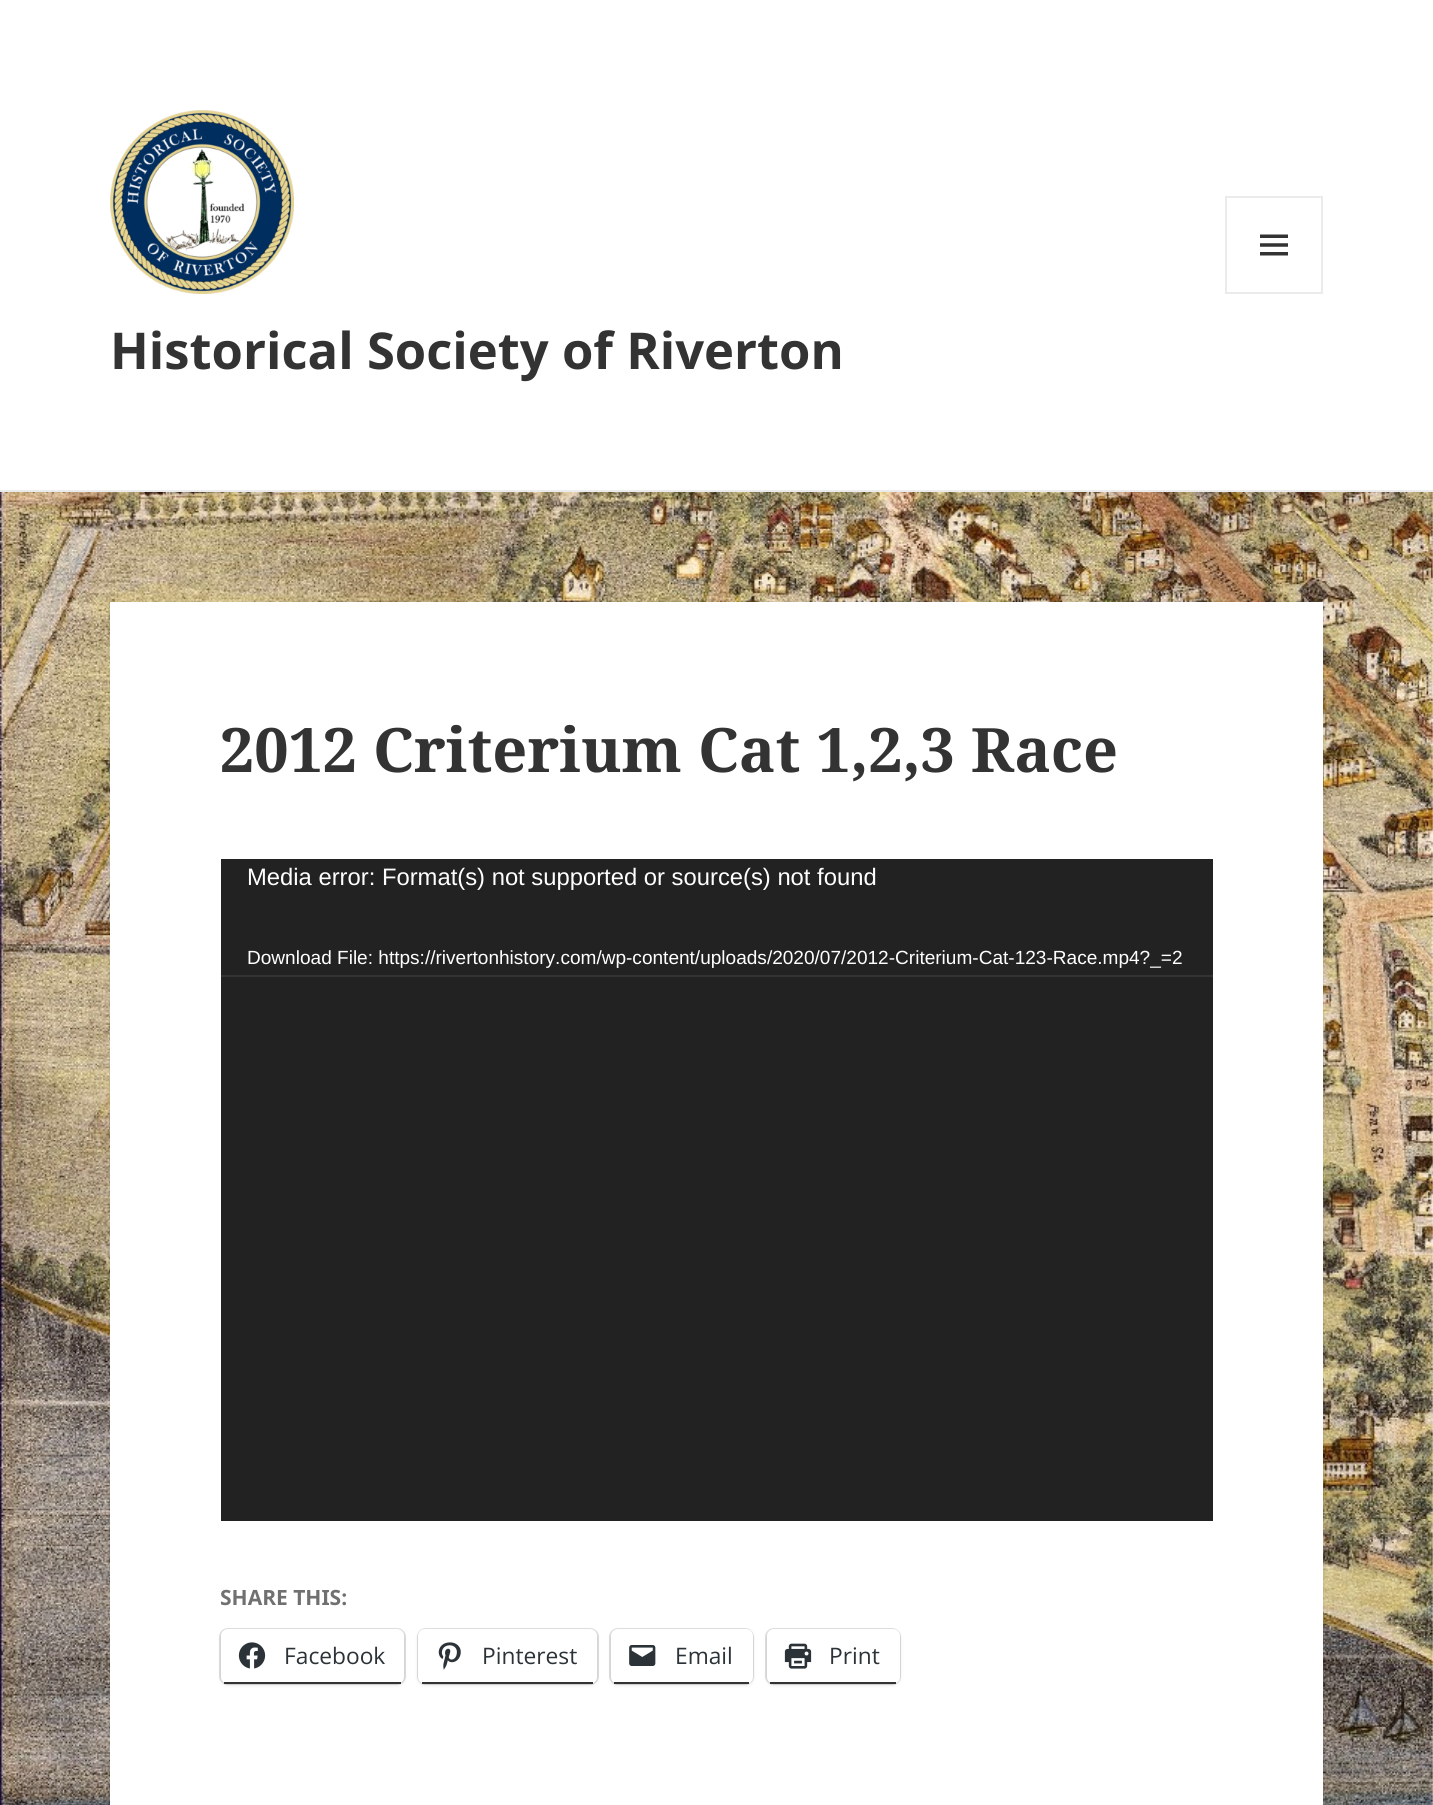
#include <cairo.h>
#include <math.h>
#include <stddef.h>

static cairo_t *c;
static void C(unsigned color){cairo_set_source_rgb(c, (color >> 16) / 255.0, (color >> 8 & 255) / 255.0, (color & 255) / 255.0);}
static void F(const char *family, double size, int italic, int bold){cairo_select_font_face(c, family, italic ? CAIRO_FONT_SLANT_ITALIC : CAIRO_FONT_SLANT_NORMAL,bold ? CAIRO_FONT_WEIGHT_BOLD : CAIRO_FONT_WEIGHT_NORMAL);cairo_set_font_size(c, size);}
static void T(double x, double y, const char *s){cairo_move_to(c, x, y);cairo_show_text(c, s);}
static void R(double x, double y, double w, double h){cairo_rectangle(c, x, y, w, h);cairo_fill(c);}
static void Q(double x, double y, double w, double h, double r){cairo_new_sub_path(c);cairo_arc(c, x + w - r, y + h - r, r, 0, M_PI / 2);cairo_arc(c, x + r, y + h - r, r, M_PI / 2, M_PI);cairo_arc(c, x + r, y + r, r, M_PI, 1.5 * M_PI);cairo_arc(c, x + w - r, y + r, r, 1.5 * M_PI, 2 * M_PI);cairo_close_path(c);}
static void S(double x, double y, double w, double h, double r, double blur, double alpha){cairo_push_group_with_content(c, CAIRO_CONTENT_ALPHA);cairo_set_operator(c, CAIRO_OPERATOR_SOURCE);for (int i = 15; i >= -15 && fmin(w, h) + blur * i / 3 > 0; i -= 2) {double e = blur * i / 6;cairo_set_source_rgba(c, 0, 0, 0, alpha * erfc((i - 1) / 8.5) / 2);Q(x - e, y - e, w + 2 * e, h + 2 * e, fmax(0, fmin(r + e + blur * .6, fmin(w, h) / 2 + e)));cairo_fill(c);}cairo_pattern_t *soft = cairo_pop_group(c);cairo_mask(c, soft);cairo_pattern_destroy(soft);}
static void I(const char *path, double x, double y, double w, double h){cairo_surface_t *image = cairo_image_surface_create_from_png(path);cairo_save(c);cairo_set_source_surface(c, image, x, y);cairo_rectangle(c, x, y, w, h);cairo_fill(c);cairo_restore(c);cairo_surface_destroy(image);}
int main(void) {
cairo_surface_t *surface = cairo_image_surface_create(CAIRO_FORMAT_RGB24, 1433, 1805);
c = cairo_create(surface);
cairo_font_options_t *options = cairo_font_options_create();
cairo_font_options_set_hint_metrics(options, CAIRO_HINT_METRICS_OFF);
cairo_font_options_set_hint_style(options, CAIRO_HINT_STYLE_NONE);
cairo_set_font_options(c, options);
cairo_set_miter_limit(c, 4);
C(0xffffff);
cairo_paint(c);
I("1.png",0,492,1433,1313);
C(0xebebeb);
R(0,490,1433,2);
I("2.png",110,110,184,184);
cairo_rectangle(c,1226,197,96,96);
cairo_stroke(c);
I("3.png",1260,234,28,22);
F("Noto Sans",50.75,0,1);
C(0x333333);
T(110,369,"Historical Society of Riverton");
C(0x000000);
S(110,602,1213,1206,0,1,.15);
C(0xffffff);
R(110,602,1213,1203);
F("Noto Serif",61.25,0,1);
C(0x333333);
T(220,772,"2012 Criterium Cat 1,2,3 Race");
C(0x222222);
R(221,859,992,662);
F("Liberation Sans",23.8,0,0);
C(0xffffff);
T(247,885,"Media error: Format(s) not supported or source(s) not found");
C(0x333333);
R(221,975,992,2);
F("Liberation Sans",19.05,0,0);
C(0xffffff);
T(247,964,"Download File: https://rivertonhistory.com/wp-content/uploads/2020/07/2012-Criterium-Cat-123-Race.mp4?_=2");
F("Noto Sans",21,0,1);
C(0x707070);
T(220,1605,"SHARE THIS:");
Q(220,1629,185,55,8);
C(0xe0e0e0);
cairo_stroke(c);
C(0x000000);
S(221,1631,183,54,7,2,.12);
C(0xffffff);
Q(221,1629,183,55,7);
cairo_fill(c);
C(0x333333);
R(224,1682,177,2);
I("4.png",238,1642,28,27);
F("Open Sans",22.75,0,0);
C(0x2c3338);
T(284,1664,"Facebook");
Q(418,1629,180,55,8);
C(0xe0e0e0);
cairo_stroke(c);
C(0x000000);
S(418,1631,179,54,7,2,.12);
C(0xffffff);
Q(418,1629,179,55,7);
cairo_fill(c);
C(0x333333);
R(422,1682,171,2);
I("5.png",438,1642,23,28);
C(0x2c3338);
T(482,1664,"Pinterest");
Q(610,1629,143,55,8);
C(0xe0e0e0);
cairo_stroke(c);
C(0x000000);
S(611,1631,142,54,7,2,.12);
C(0xffffff);
Q(611,1629,142,55,7);
cairo_fill(c);
C(0x333333);
R(614,1682,135,2);
I("6.png",629,1645,27,21);
C(0x2c3338);
T(675,1664,"Email");
Q(766,1629,134,55,8);
C(0xe0e0e0);
cairo_stroke(c);
C(0x000000);
S(767,1631,133,54,7,2,.12);
C(0xffffff);
Q(767,1629,133,55,7);
cairo_fill(c);
C(0x333333);
R(770,1682,126,2);
I("7.png",784,1643,28,26);
C(0x2c3338);
T(829,1664,"Print");
cairo_surface_write_to_png(surface, "o.png");
cairo_font_options_destroy(options);
cairo_destroy(c);
cairo_surface_destroy(surface);
return 0;
}
